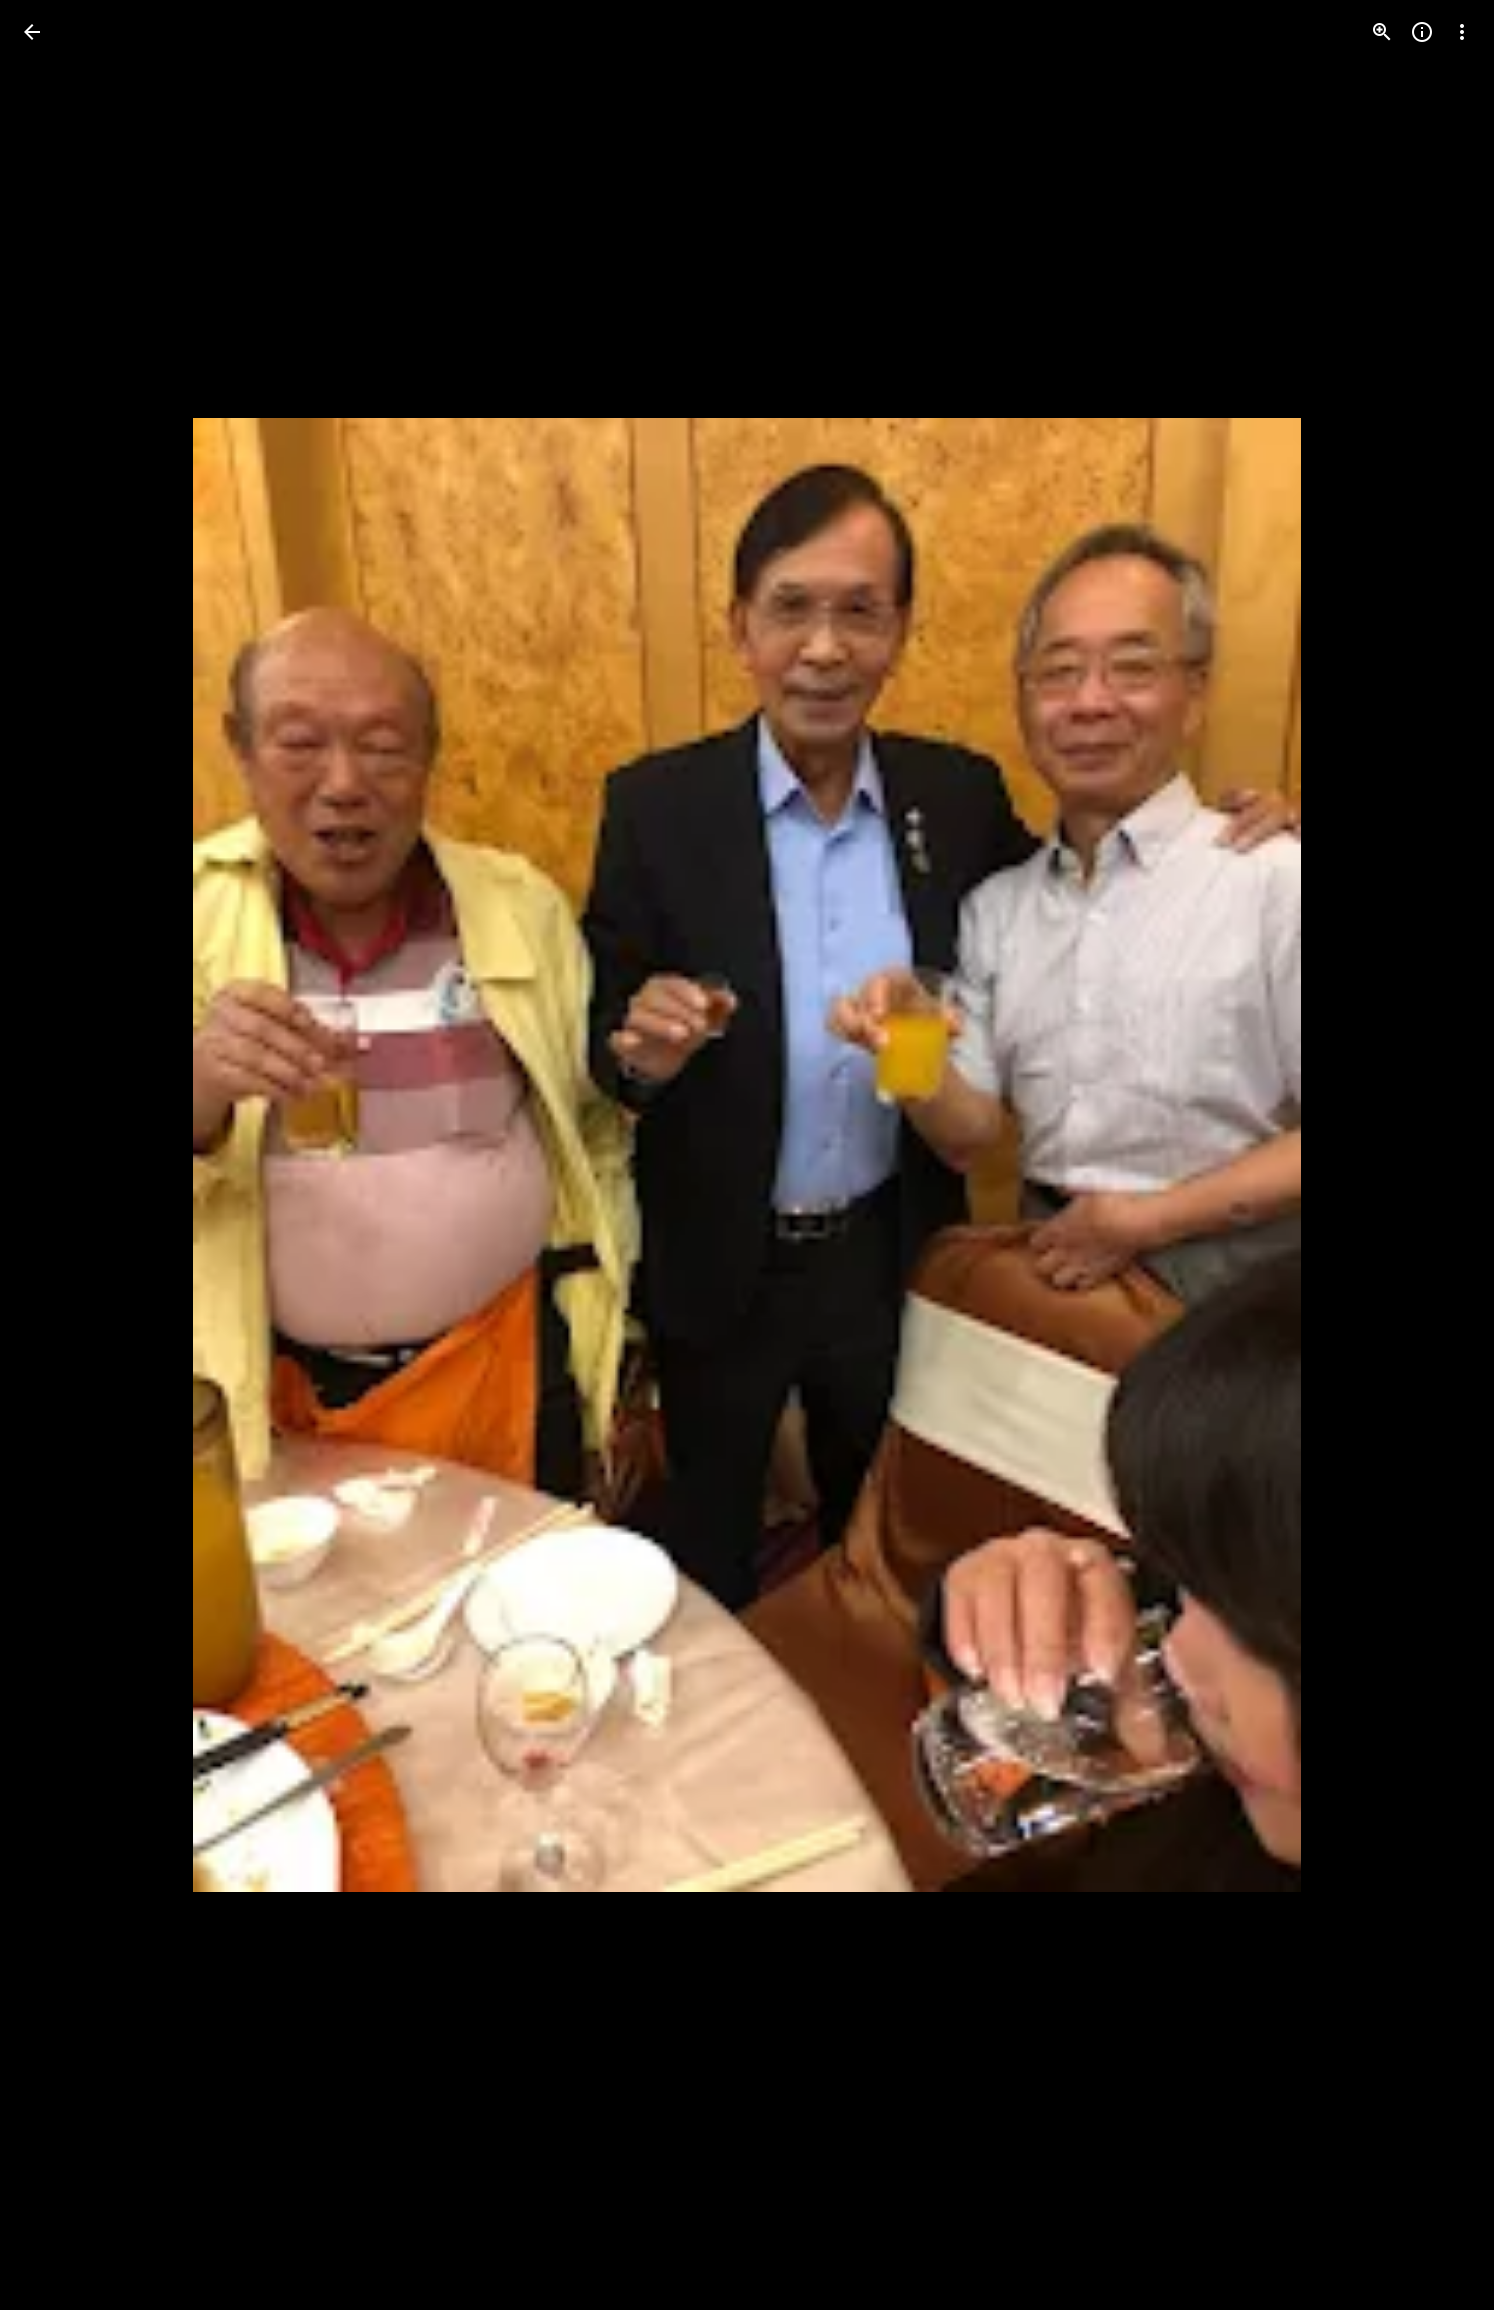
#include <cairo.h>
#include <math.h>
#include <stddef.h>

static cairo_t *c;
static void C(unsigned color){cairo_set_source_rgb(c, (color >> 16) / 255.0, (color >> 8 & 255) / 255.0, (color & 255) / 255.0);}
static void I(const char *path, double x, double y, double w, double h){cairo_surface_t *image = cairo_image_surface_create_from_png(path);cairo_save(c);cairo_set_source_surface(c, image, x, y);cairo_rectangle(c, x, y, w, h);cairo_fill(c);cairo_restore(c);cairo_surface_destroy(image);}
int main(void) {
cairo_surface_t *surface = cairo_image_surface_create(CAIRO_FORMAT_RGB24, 1494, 2310);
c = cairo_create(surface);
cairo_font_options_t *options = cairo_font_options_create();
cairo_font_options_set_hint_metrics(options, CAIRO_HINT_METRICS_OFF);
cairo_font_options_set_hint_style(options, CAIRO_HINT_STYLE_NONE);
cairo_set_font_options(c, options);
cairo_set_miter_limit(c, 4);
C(0x000000);
cairo_paint(c);
I("1.png",24,24,16,16);
I("2.png",1373,23,18,18);
I("3.png",1412,22,20,20);
I("4.png",1460,24,4,16);
I("5.png",193,418,1108,1474);
cairo_surface_write_to_png(surface, "o.png");
cairo_font_options_destroy(options);
cairo_destroy(c);
cairo_surface_destroy(surface);
return 0;
}
